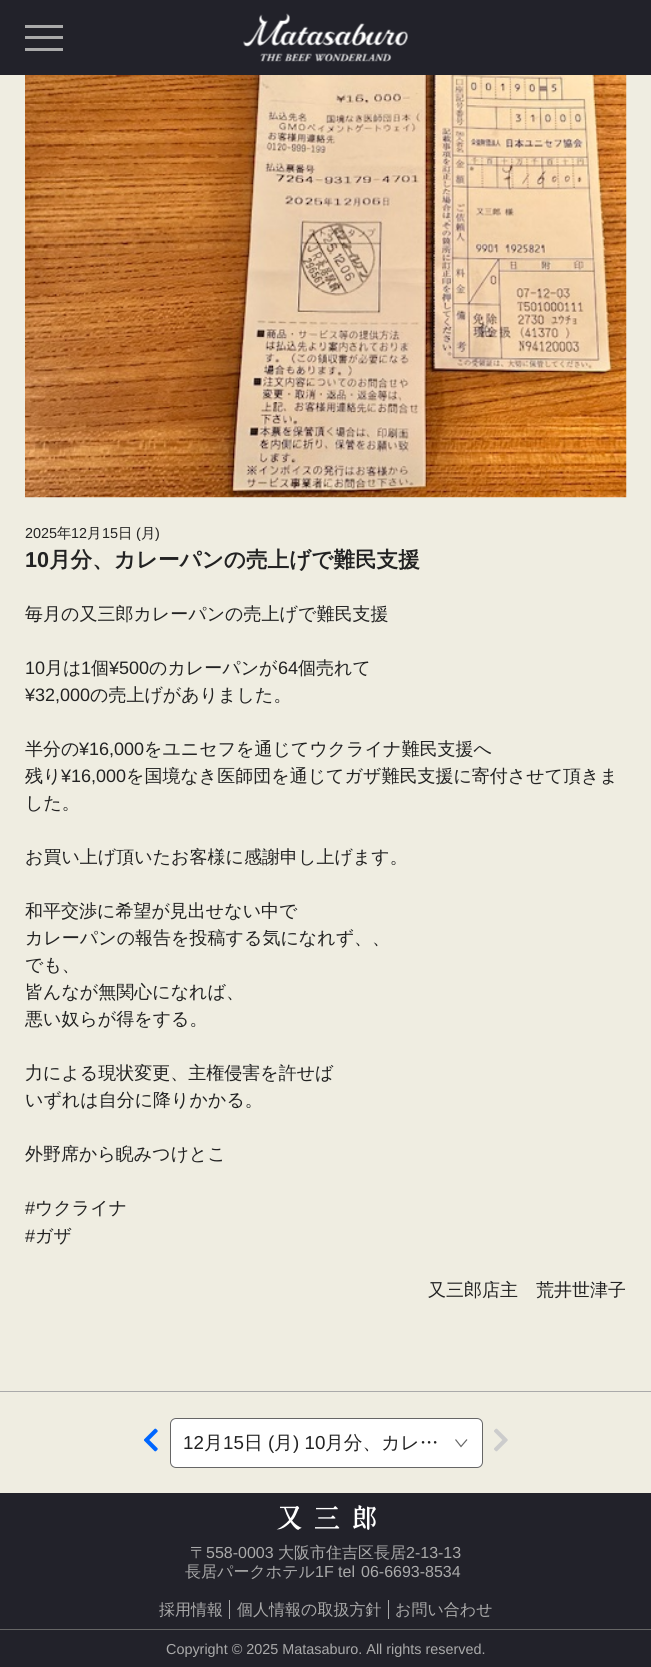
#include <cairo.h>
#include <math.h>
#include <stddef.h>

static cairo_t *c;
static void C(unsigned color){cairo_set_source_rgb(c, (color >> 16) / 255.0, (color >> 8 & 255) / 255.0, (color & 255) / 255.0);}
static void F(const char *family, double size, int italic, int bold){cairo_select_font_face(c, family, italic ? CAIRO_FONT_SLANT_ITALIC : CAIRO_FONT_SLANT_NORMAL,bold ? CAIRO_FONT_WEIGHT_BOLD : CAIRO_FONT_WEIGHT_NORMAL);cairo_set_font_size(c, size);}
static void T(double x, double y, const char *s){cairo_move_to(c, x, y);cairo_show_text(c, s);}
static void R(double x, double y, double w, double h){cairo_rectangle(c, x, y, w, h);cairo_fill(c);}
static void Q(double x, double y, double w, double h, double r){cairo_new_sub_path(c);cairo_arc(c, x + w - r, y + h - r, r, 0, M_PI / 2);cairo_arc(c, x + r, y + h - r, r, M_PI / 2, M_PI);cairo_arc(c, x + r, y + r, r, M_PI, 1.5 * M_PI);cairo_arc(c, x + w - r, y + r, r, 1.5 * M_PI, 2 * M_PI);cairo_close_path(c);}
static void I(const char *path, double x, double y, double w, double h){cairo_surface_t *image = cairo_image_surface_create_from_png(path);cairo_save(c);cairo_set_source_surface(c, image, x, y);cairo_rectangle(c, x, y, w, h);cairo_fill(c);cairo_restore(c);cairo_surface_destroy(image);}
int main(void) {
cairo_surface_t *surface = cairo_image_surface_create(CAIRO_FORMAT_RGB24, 651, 1667);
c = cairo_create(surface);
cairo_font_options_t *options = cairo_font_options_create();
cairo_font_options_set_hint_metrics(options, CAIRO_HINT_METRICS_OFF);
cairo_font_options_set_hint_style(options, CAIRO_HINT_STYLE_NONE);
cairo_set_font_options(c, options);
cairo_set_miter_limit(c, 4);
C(0xefede1);
cairo_paint(c);
C(0x22222a);
R(0,0,651,75);
C(0xaaaaaa);
R(25,25,38,3);
R(25,36,38,3);
R(25,48,38,3);
I("1.png",243,13,165,49);
I("2.png",25,75,602,423);
F("Liberation Sans",14.4,0,0);
C(0x222222);
T(25,538,"2025");
F("WenQuanYi Zen Hei Medium",14.4,0,0);
T(57,538,"年");
F("Liberation Sans",14.4,0,0);
T(71,538,"12");
F("WenQuanYi Zen Hei Medium",14.4,0,0);
T(87,538,"月");
F("Liberation Sans",14.4,0,0);
T(102,538,"15");
F("WenQuanYi Zen Hei Medium",14.4,0,0);
T(118,538,"日");
F("Liberation Sans",14.4,0,0);
T(136,538,"(");
F("WenQuanYi Zen Hei Medium",14.4,0,0);
T(141,538,"月");
F("Liberation Sans",14.4,0,0);
T(155,538,")");
F("Liberation Sans",21.6,0,1);
T(25,567,"10");
F("WenQuanYi Zen Hei",21.6,0,1);
T(49,567,"月分、カレーパンの売上げで難民支援");
F("WenQuanYi Zen Hei Medium",18,0,0);
T(25,620,"毎月の又三郎カレーパンの売上げで難民支援");
F("Liberation Sans",18,0,0);
T(25,674,"10");
F("WenQuanYi Zen Hei Medium",18,0,0);
T(45,674,"月は");
F("Liberation Sans",18,0,0);
T(81,674,"1");
F("WenQuanYi Zen Hei Medium",18,0,0);
T(91,674,"個");
F("Liberation Sans",18,0,0);
T(109,674,"¥500");
F("WenQuanYi Zen Hei Medium",18,0,0);
T(149,674,"のカレーパンが");
F("Liberation Sans",18,0,0);
T(278,674,"64");
F("WenQuanYi Zen Hei Medium",18,0,0);
T(298,674,"個売れて");
F("Liberation Sans",18,0,0);
T(25,701,"¥32,000");
F("WenQuanYi Zen Hei Medium",18,0,0);
T(90,701,"の売上げがありました。");
T(25,755,"半分の");
F("Liberation Sans",18,0,0);
T(79,755,"¥16,000");
F("WenQuanYi Zen Hei Medium",18,0,0);
T(144,755,"をユニセフを通じてウクライナ難民支援へ");
T(25,782,"残り");
F("Liberation Sans",18,0,0);
T(61,782,"¥16,000");
F("WenQuanYi Zen Hei Medium",18,0,0);
T(126,782,"を国境なき医師団を通じてガザ難民支援に寄付させて頂きま");
T(25,809,"した。");
T(25,863,"お買い上げ頂いたお客様に感謝申し上げます。");
T(25,917,"和平交渉に希望が見出せない中で");
T(25,944,"カレーパンの報告を投稿する気になれず、、");
T(25,971,"でも、");
T(25,998,"皆んなが無関心になれば、");
T(25,1025,"悪い奴らが得をする。");
T(25,1079,"力による現状変更、主権侵害を許せば");
T(25,1106,"いずれは自分に降りかかる。");
T(25,1160,"外野席から睨みつけとこ");
F("Liberation Sans",18,0,0);
T(25,1214,"#");
F("WenQuanYi Zen Hei Medium",18,0,0);
T(35,1214,"ウクライナ");
F("Liberation Sans",18,0,0);
T(25,1242,"#");
F("WenQuanYi Zen Hei Medium",18,0,0);
T(35,1242,"ガザ");
T(428,1296,"又三郎店主　荒井世津子");
C(0xaaaaaa);
R(0,1391,651,1);
I("3.png",144,1428,14,24);
C(0xffffff);
Q(170,1418,313,50,6);
cairo_fill(c);
cairo_new_path(c);
cairo_move_to(c,467,1439.5);
cairo_line_to(c,461,1446.5);
cairo_line_to(c,455.5,1439.5);
C(0x666666);
cairo_set_line_width(c,1.2);
cairo_stroke(c);
Q(170.5,1418.5,312,49,5.5);
cairo_set_line_width(c,1);
cairo_stroke(c);
F("Liberation Sans",18.75,0,0);
C(0x222222);
T(183,1449,"12");
F("WenQuanYi Zen Hei Medium",18.75,0,0);
T(204,1449,"月");
F("Liberation Sans",18.75,0,0);
T(223,1449,"15");
F("WenQuanYi Zen Hei Medium",18.75,0,0);
T(244,1449,"日");
F("Liberation Sans",18.75,0,0);
T(268,1449,"(");
F("WenQuanYi Zen Hei Medium",18.75,0,0);
T(274,1449,"月");
F("Liberation Sans",18.75,0,0);
T(293,1449,") 10");
F("WenQuanYi Zen Hei Medium",18.75,0,0);
T(325,1449,"月分、カレ…");
I("4.png",494,1428,14,24);
C(0x22222a);
R(0,1493,651,174);
I("5.png",276,1505,100,25);
F("WenQuanYi Zen Hei Medium",16,0,0);
C(0xaaaaaa);
T(190,1558,"〒");
F("Liberation Sans",16,0,0);
T(206,1558,"558-0003");
F("WenQuanYi Zen Hei Medium",16,0,0);
T(278,1558,"大阪市住吉区長居");
F("Liberation Sans",16,0,0);
T(406,1558,"2-13-13");
F("WenQuanYi Zen Hei Medium",16,0,0);
T(185,1577,"長居パークホテル");
F("Liberation Sans",16,0,0);
T(315,1577,"1F tel");
T(361,1577,"06-6693-8534");
F("WenQuanYi Zen Hei Medium",16,0,0);
T(159,1615,"採用情報");
R(229,1600,1,19);
T(237,1615,"個人情報の取扱方針");
R(388,1600,1,19);
T(395,1615,"お問い合わせ");
C(0x666666);
R(0,1629,651,1);
F("Liberation Sans",14.4,0,0);
C(0xaaaaaa);
T(166,1654,"Copyright © 2025 Matasaburo. All rights reserved.");
cairo_surface_write_to_png(surface, "o.png");
cairo_font_options_destroy(options);
cairo_destroy(c);
cairo_surface_destroy(surface);
return 0;
}
